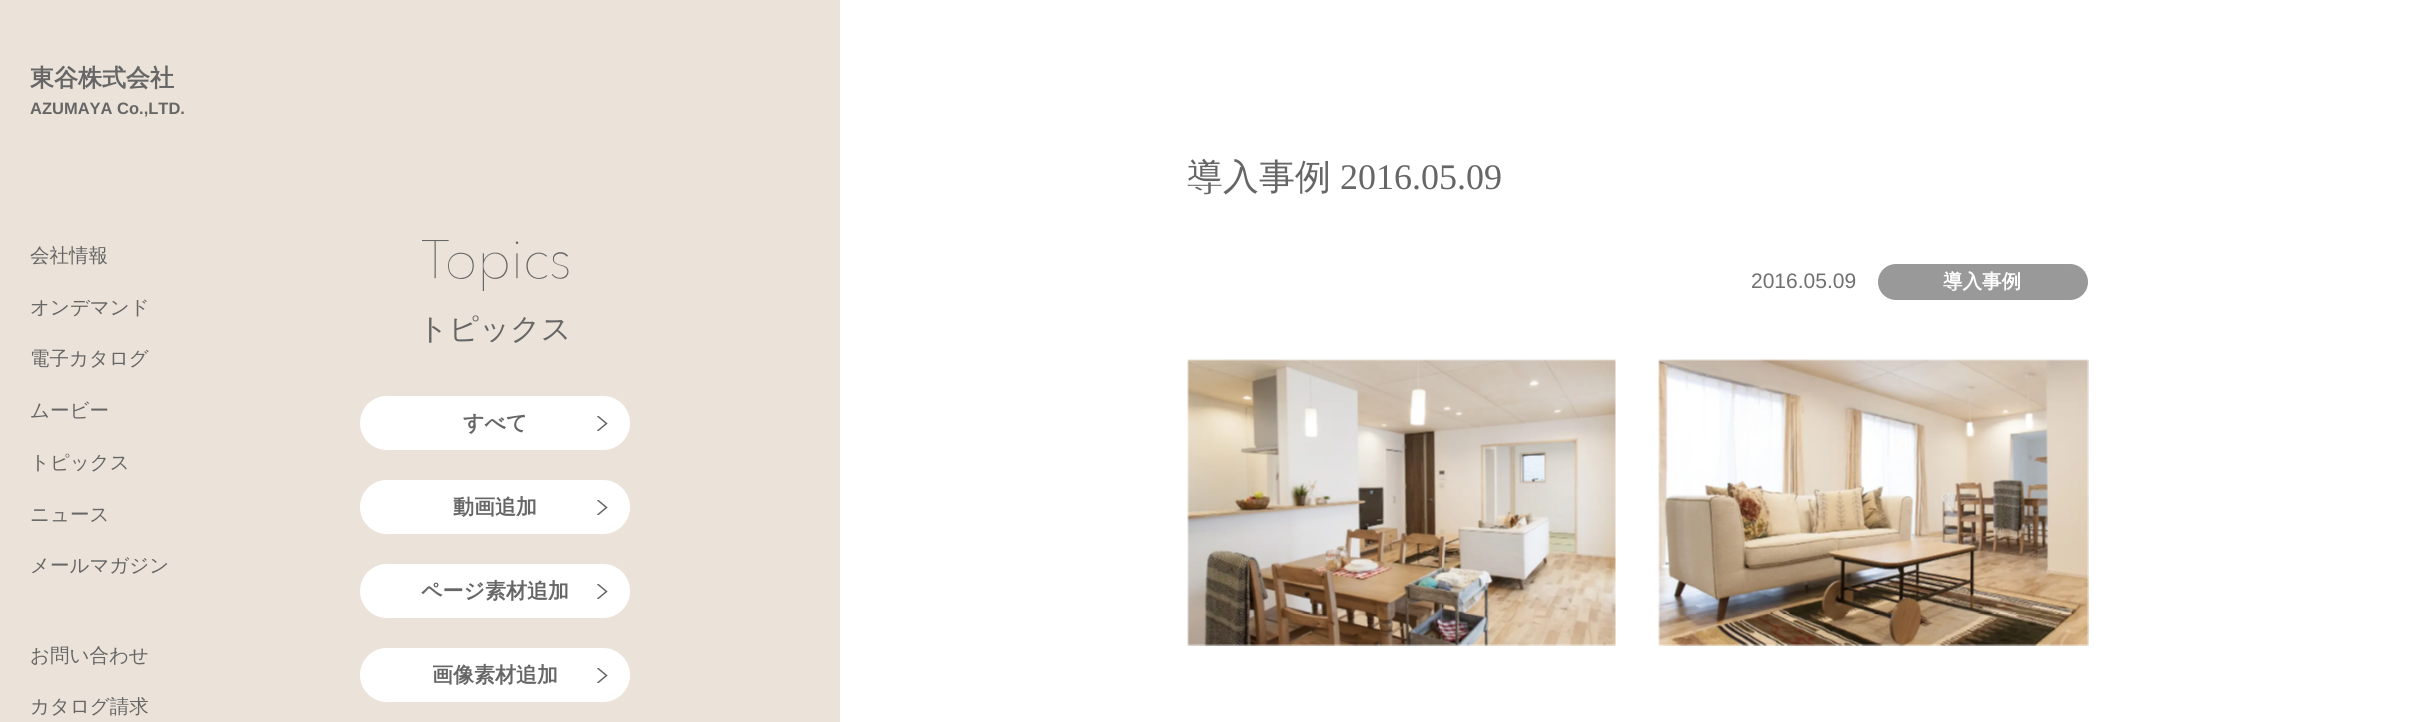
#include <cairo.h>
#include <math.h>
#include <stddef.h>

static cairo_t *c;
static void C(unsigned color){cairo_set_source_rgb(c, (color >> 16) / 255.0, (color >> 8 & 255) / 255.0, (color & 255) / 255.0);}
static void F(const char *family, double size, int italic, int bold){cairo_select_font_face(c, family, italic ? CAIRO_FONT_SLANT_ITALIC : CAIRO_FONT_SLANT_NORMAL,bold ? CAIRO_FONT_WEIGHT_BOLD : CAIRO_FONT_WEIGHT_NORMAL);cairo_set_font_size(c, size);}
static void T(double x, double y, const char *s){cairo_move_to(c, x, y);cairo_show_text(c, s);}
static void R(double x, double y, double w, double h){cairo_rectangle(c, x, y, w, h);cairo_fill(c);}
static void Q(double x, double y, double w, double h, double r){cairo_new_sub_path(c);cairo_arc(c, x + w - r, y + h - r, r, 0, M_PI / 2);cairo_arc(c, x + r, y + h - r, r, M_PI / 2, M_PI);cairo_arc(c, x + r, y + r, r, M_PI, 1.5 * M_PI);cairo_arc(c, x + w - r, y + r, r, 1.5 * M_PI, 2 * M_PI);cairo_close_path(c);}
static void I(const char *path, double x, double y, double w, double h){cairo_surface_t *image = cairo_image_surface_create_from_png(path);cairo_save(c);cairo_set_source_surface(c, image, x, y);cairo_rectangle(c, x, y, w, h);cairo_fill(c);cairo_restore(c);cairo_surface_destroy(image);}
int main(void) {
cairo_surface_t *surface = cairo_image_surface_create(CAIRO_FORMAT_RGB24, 2434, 722);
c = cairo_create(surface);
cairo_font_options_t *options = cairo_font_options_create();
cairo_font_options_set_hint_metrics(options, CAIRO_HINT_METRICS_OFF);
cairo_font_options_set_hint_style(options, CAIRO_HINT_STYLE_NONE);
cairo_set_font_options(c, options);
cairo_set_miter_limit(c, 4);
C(0xffffff);
cairo_paint(c);
C(0xebe3d9);
R(0,0,840,722);
F("WenQuanYi Zen Hei",24,0,1);
C(0x666666);
T(30,86,"東谷株式会社");
F("Liberation Sans",16.5,0,1);
T(30,114,"AZUMAYA Co.,LTD.");
F("WenQuanYi Zen Hei Medium",19.5,0,0);
T(30,262,"会社情報");
T(30,314,"オンデマンド");
T(30,365,"電子カタログ");
T(30,417,"ムービー");
T(30,469,"トピックス");
T(30,521,"ニュース");
T(30,572,"メールマガジン");
T(30,662,"お問い合わせ");
T(30,713,"カタログ請求");
I("1.png",422,240,147,51);
F("WenQuanYi Zen Hei Medium",30,0,0);
T(418,339,"トピックス");
C(0xffffff);
Q(360,396,270,54,27);
cairo_fill(c);
F("WenQuanYi Zen Hei",21,0,1);
C(0x666666);
T(463,430,"すべて");
cairo_save(c);
cairo_rectangle(c,597,416,11,15);
cairo_clip(c);
cairo_new_path(c);
cairo_move_to(c,597.5,416);
cairo_line_to(c,606.5,423.5);
cairo_line_to(c,597.5,431);
cairo_set_line_width(c,1.5);
cairo_stroke(c);
cairo_restore(c);
C(0xffffff);
Q(360,480,270,54,27);
cairo_fill(c);
C(0x666666);
T(453,514,"動画追加");
cairo_save(c);
cairo_rectangle(c,597,500,11,15);
cairo_clip(c);
cairo_new_path(c);
cairo_move_to(c,597.5,500);
cairo_line_to(c,606.5,507.5);
cairo_line_to(c,597.5,515);
cairo_set_line_width(c,1.5);
cairo_stroke(c);
cairo_restore(c);
C(0xffffff);
Q(360,564,270,54,27);
cairo_fill(c);
C(0x666666);
T(421,598,"ページ素材追加");
cairo_save(c);
cairo_rectangle(c,597,584,11,15);
cairo_clip(c);
cairo_new_path(c);
cairo_move_to(c,597.5,584);
cairo_line_to(c,606.5,591.5);
cairo_line_to(c,597.5,599);
cairo_set_line_width(c,1.5);
cairo_stroke(c);
cairo_restore(c);
C(0xffffff);
Q(360,648,270,54,27);
cairo_fill(c);
C(0x666666);
T(432,682,"画像素材追加");
cairo_save(c);
cairo_rectangle(c,597,668,11,15);
cairo_clip(c);
cairo_new_path(c);
cairo_move_to(c,597.5,668);
cairo_line_to(c,606.5,675.5);
cairo_line_to(c,597.5,683);
cairo_set_line_width(c,1.5);
cairo_stroke(c);
cairo_restore(c);
F("WenQuanYi Zen Hei Medium",36,0,0);
T(1187,189,"導入事例");
F("Liberation Serif",36,0,0);
T(1340,189,"2016.05.09");
F("Liberation Sans",21,0,0);
C(0x707070);
T(1751,288,"2016.05.09");
C(0x999999);
Q(1878,264,210,36,18);
cairo_fill(c);
F("WenQuanYi Zen Hei",19.5,0,1);
C(0xffffff);
T(1943,288,"導入事例");
I("2.png",1187,359,429,287);
I("3.png",1658,359,431,287);
cairo_surface_write_to_png(surface, "o.png");
cairo_font_options_destroy(options);
cairo_destroy(c);
cairo_surface_destroy(surface);
return 0;
}
